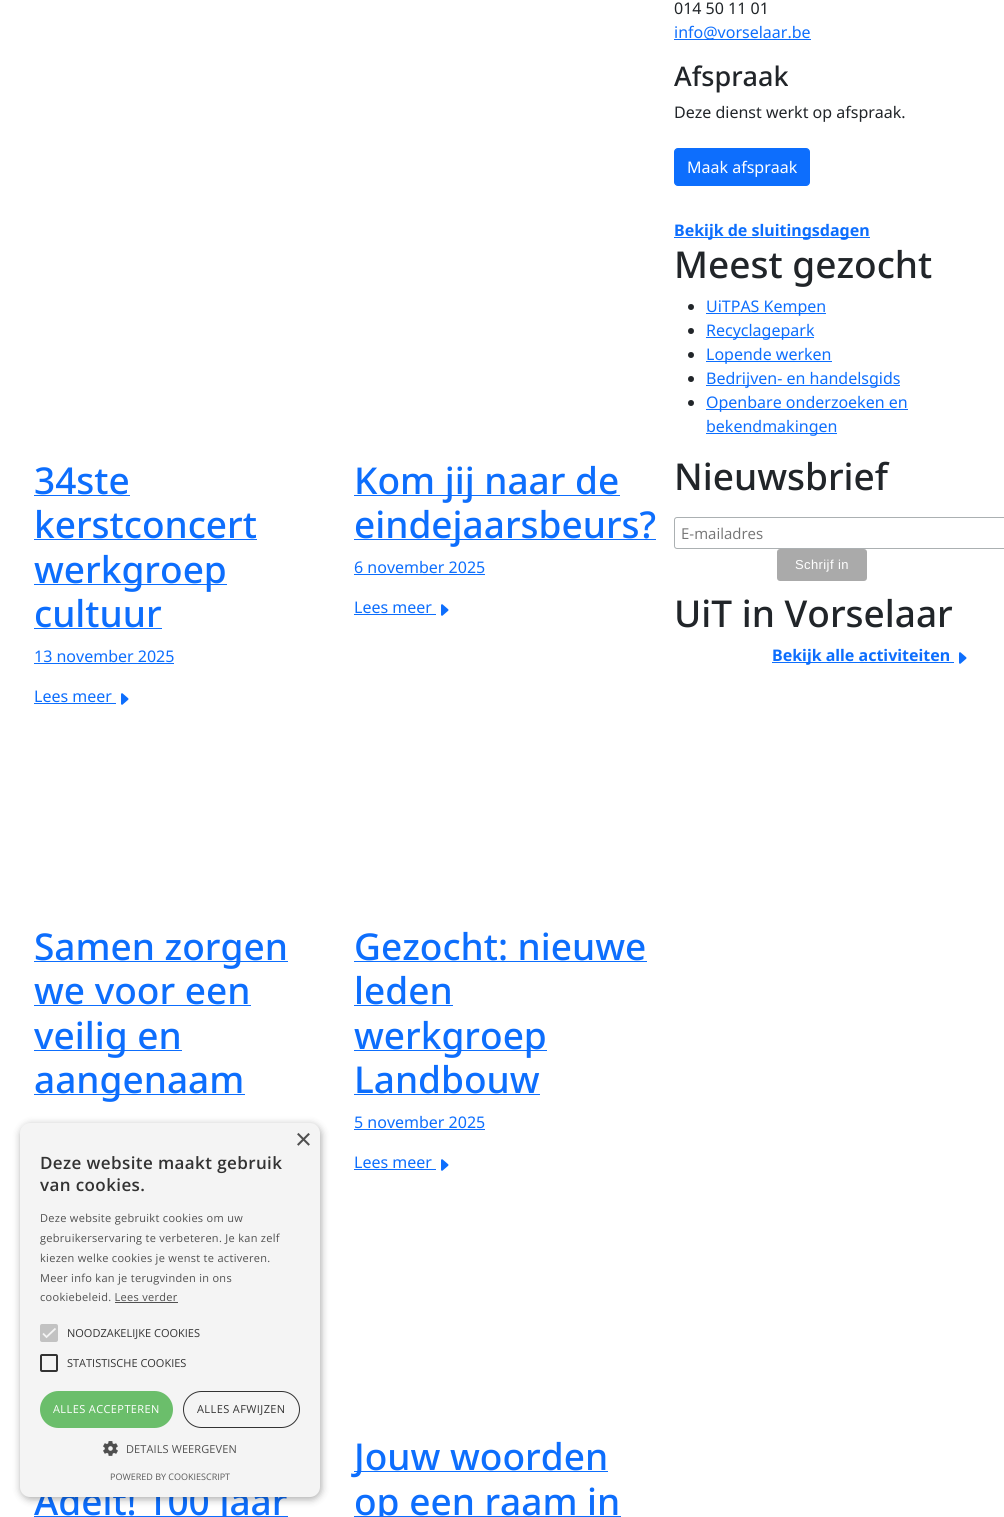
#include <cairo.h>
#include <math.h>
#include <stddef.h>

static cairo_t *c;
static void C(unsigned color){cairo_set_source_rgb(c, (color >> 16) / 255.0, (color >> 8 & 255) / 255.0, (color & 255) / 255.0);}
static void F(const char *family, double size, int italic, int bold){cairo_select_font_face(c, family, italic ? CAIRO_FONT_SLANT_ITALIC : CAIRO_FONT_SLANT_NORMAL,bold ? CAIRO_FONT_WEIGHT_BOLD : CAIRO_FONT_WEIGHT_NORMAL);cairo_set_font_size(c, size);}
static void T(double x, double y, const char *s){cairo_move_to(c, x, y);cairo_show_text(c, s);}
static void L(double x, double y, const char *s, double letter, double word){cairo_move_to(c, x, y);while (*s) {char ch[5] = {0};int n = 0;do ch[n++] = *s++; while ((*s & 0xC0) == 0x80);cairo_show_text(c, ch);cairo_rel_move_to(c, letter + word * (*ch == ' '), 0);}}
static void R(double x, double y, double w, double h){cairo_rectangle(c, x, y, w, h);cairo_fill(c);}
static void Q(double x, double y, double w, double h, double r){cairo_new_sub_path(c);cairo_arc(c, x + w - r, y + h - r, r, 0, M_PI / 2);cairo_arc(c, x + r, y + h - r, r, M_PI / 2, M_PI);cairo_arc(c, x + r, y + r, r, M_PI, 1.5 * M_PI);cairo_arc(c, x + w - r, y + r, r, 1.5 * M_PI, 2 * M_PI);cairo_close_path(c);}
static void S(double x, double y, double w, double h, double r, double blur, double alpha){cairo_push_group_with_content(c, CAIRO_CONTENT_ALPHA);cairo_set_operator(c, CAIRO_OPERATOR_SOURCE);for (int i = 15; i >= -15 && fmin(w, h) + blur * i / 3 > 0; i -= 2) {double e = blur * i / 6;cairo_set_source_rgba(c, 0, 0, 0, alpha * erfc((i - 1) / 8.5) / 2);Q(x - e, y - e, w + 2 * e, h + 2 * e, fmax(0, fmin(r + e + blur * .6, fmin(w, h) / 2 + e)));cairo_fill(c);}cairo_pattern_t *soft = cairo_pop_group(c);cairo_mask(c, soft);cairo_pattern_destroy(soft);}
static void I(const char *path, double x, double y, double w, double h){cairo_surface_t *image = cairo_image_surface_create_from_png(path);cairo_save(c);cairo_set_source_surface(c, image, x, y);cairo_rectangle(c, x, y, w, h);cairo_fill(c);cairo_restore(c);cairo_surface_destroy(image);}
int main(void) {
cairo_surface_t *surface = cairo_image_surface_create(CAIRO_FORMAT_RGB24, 1004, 1517);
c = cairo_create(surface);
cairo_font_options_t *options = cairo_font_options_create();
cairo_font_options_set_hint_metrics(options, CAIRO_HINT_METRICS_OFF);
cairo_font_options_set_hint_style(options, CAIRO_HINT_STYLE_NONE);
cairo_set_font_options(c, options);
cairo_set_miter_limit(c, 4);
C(0xffffff);
cairo_paint(c);
F("Noto Sans",16,0,0);
C(0x212529);
T(674,14,"014 50 11 01");
C(0x0d6efd);
R(674,39,137,1);
T(674,38,"info@vorselaar.be");
F("Noto Sans Medium",27,0,0);
C(0x212529);
T(674,86,"Afspraak");
F("Noto Sans",16,0,0);
T(674,118,"Deze dienst werkt op afspraak.");
C(0x0d6efd);
Q(674.5,148.5,135,37,3.5);
cairo_fill_preserve(c);
cairo_set_line_width(c,1);
cairo_stroke(c);
C(0xffffff);
T(687,173,"Maak afspraak");
C(0x0d6efd);
R(674,237,196,1);
F("Noto Sans",16,0,1);
T(674,236,"Bekijk de sluitingsdagen");
F("Noto Sans Medium",37,0,0);
T(34,494,"34ste");
R(34,495,96,1);
T(34,538,"kerstconcert");
R(34,539,223,1);
R(34,584,193,1);
T(34,583,"werkgroep");
T(34,627,"cultuur");
R(34,628,128,1);
F("Noto Sans",16,0,0);
T(34,662,"13 november 2025");
R(34,663,140,1);
T(34,702,"Lees meer");
R(34,703,82,1);
I("1.png",121,693,8,12);
R(354,495,266,1);
F("Noto Sans Medium",37,0,0);
T(354,494,"Kom jij naar de");
R(354,539,302,1);
T(354,538,"eindejaarsbeurs?");
F("Noto Sans",16,0,0);
T(354,573,"6 november 2025");
R(354,574,131,1);
T(354,613,"Lees meer");
R(354,614,82,1);
I("1.png",441,604,8,12);
R(34,961,254,1);
F("Noto Sans Medium",37,0,0);
T(34,960,"Samen zorgen");
T(34,1004,"we voor een");
R(34,1005,217,1);
R(34,1050,148,1);
T(34,1049,"veilig en");
R(34,1094,211,1);
T(34,1093,"aangenaam");
T(354,960,"Gezocht: nieuwe");
R(354,961,293,1);
T(354,1004,"leden");
R(354,1005,99,1);
R(354,1050,193,1);
T(354,1049,"werkgroep");
T(354,1093,"Landbouw");
R(354,1094,186,1);
F("Noto Sans",16,0,0);
T(354,1128,"5 november 2025");
R(354,1129,131,1);
T(354,1168,"Lees meer");
R(354,1169,82,1);
I("1.png",441,1159,8,12);
R(34,1516,254,1);
F("Noto Sans Medium",37,0,0);
T(34,1515,"Adelt! 100 jaar");
R(354,1471,254,1);
T(354,1470,"Jouw woorden");
R(354,1516,267,1);
T(354,1515,"op een raam in");
C(0x212529);
T(674,278,"Meest gezocht");
cairo_new_path(c);
cairo_arc(c,691,307,3,0,2 * M_PI);
cairo_fill(c);
C(0x0d6efd);
R(706,313,120,1);
F("Noto Sans",16,0,0);
T(706,312,"UiTPAS Kempen");
C(0x212529);
cairo_new_path(c);
cairo_arc(c,691,331,3,0,2 * M_PI);
cairo_fill(c);
C(0x0d6efd);
R(706,337,108,1);
T(706,336,"Recyclagepark");
C(0x212529);
cairo_new_path(c);
cairo_arc(c,691,355,3,0,2 * M_PI);
cairo_fill(c);
C(0x0d6efd);
R(706,361,126,1);
T(706,360,"Lopende werken");
C(0x212529);
cairo_new_path(c);
cairo_arc(c,691,379,3,0,2 * M_PI);
cairo_fill(c);
C(0x0d6efd);
R(706,385,194,1);
T(706,384,"Bedrijven- en handelsgids");
C(0x212529);
cairo_new_path(c);
cairo_arc(c,691,403,3,0,2 * M_PI);
cairo_fill(c);
C(0x0d6efd);
R(706,409,202,1);
T(706,408,"Openbare onderzoeken en");
R(706,433,131,1);
T(706,432,"bekendmakingen");
F("Noto Sans Medium",37,0,0);
C(0x212529);
T(674,490,"Nieuwsbrief");
Q(674.5,517.5,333,31,2.5);
C(0xabb0b2);
cairo_stroke(c);
F("Open Sans",15,0,0);
C(0x757575);
T(681,539,"E-mailadres");
C(0xaaaaaa);
Q(777,549,90,32,3);
cairo_fill(c);
F("Liberation Sans",13,0,0);
C(0xffffff);
L(795,569,"Schrijf in",.4,0);
F("Noto Sans Medium",37,0,0);
C(0x212529);
T(674,627,"UiT in Vorselaar");
C(0x0d6efd);
R(772,662,182,1);
F("Noto Sans",16,0,1);
T(772,661,"Bekijk alle activiteiten");
I("1.png",959,652,8,12);
C(0x000000);
S(21,1125,300,374,10,4,.35);
C(0xf4f4f4);
Q(20,1123,300,374,10);
cairo_fill(c);
F("Liberation Sans",29,0,0);
C(0x505050);
T(295,1149,"×");
F("Open Sans SemiBold",17,0,0);
C(0x333333);
L(40,1169,"Deze website maakt gebruik",.4,0);
L(40,1191,"van cookies.",.4,0);
F("Open Sans",11,0,0);
C(0x505050);
L(40,1222,"Deze website gebruikt cookies om uw",.3,0);
L(40,1242,"gebruikerservaring te verbeteren. Je kan zelf",.3,0);
L(40,1262,"kiezen welke cookies je wenst te activeren.",.3,0);
L(40,1282,"Meer info kan je terugvinden in ons",.3,0);
L(40,1301,"cookiebeleid. Lees verder",.3,0);
R(115,1302,63,1);
C(0xc2c2c2);
Q(40,1324,18,18,2);
cairo_fill(c);
cairo_new_path(c);
cairo_move_to(c,43,1333.5);
cairo_line_to(c,46.5,1337);
cairo_line_to(c,55.5,1328.5);
C(0xf4f4f4);
cairo_set_line_width(c,1.8);
cairo_stroke(c);
C(0x333333);
T(67,1337,"NOODZAKELIJKE COOKIES");
Q(41,1355,16,16,1);
cairo_set_line_width(c,2);
cairo_stroke(c);
T(67,1367,"STATISTISCHE COOKIES");
C(0x6bbe6b);
Q(40,1391,133,37,18.5);
cairo_fill(c);
C(0xffffff);
L(53,1413,"ALLES ACCEPTEREN",.4,0);
Q(183.5,1391.5,116,36,18);
C(0x333333);
cairo_set_line_width(c,1);
cairo_stroke(c);
L(197,1413,"ALLES AFWIJZEN",.4,0);
I("2.png",103,1441,15,15);
C(0x505050);
L(126,1453,"DETAILS WEERGEVEN",.1,0);
F("Open Sans",9,0,0);
C(0x5a5a5a);
T(110,1480,"POWERED BY COOKIESCRIPT");
cairo_surface_write_to_png(surface, "o.png");
cairo_font_options_destroy(options);
cairo_destroy(c);
cairo_surface_destroy(surface);
return 0;
}
